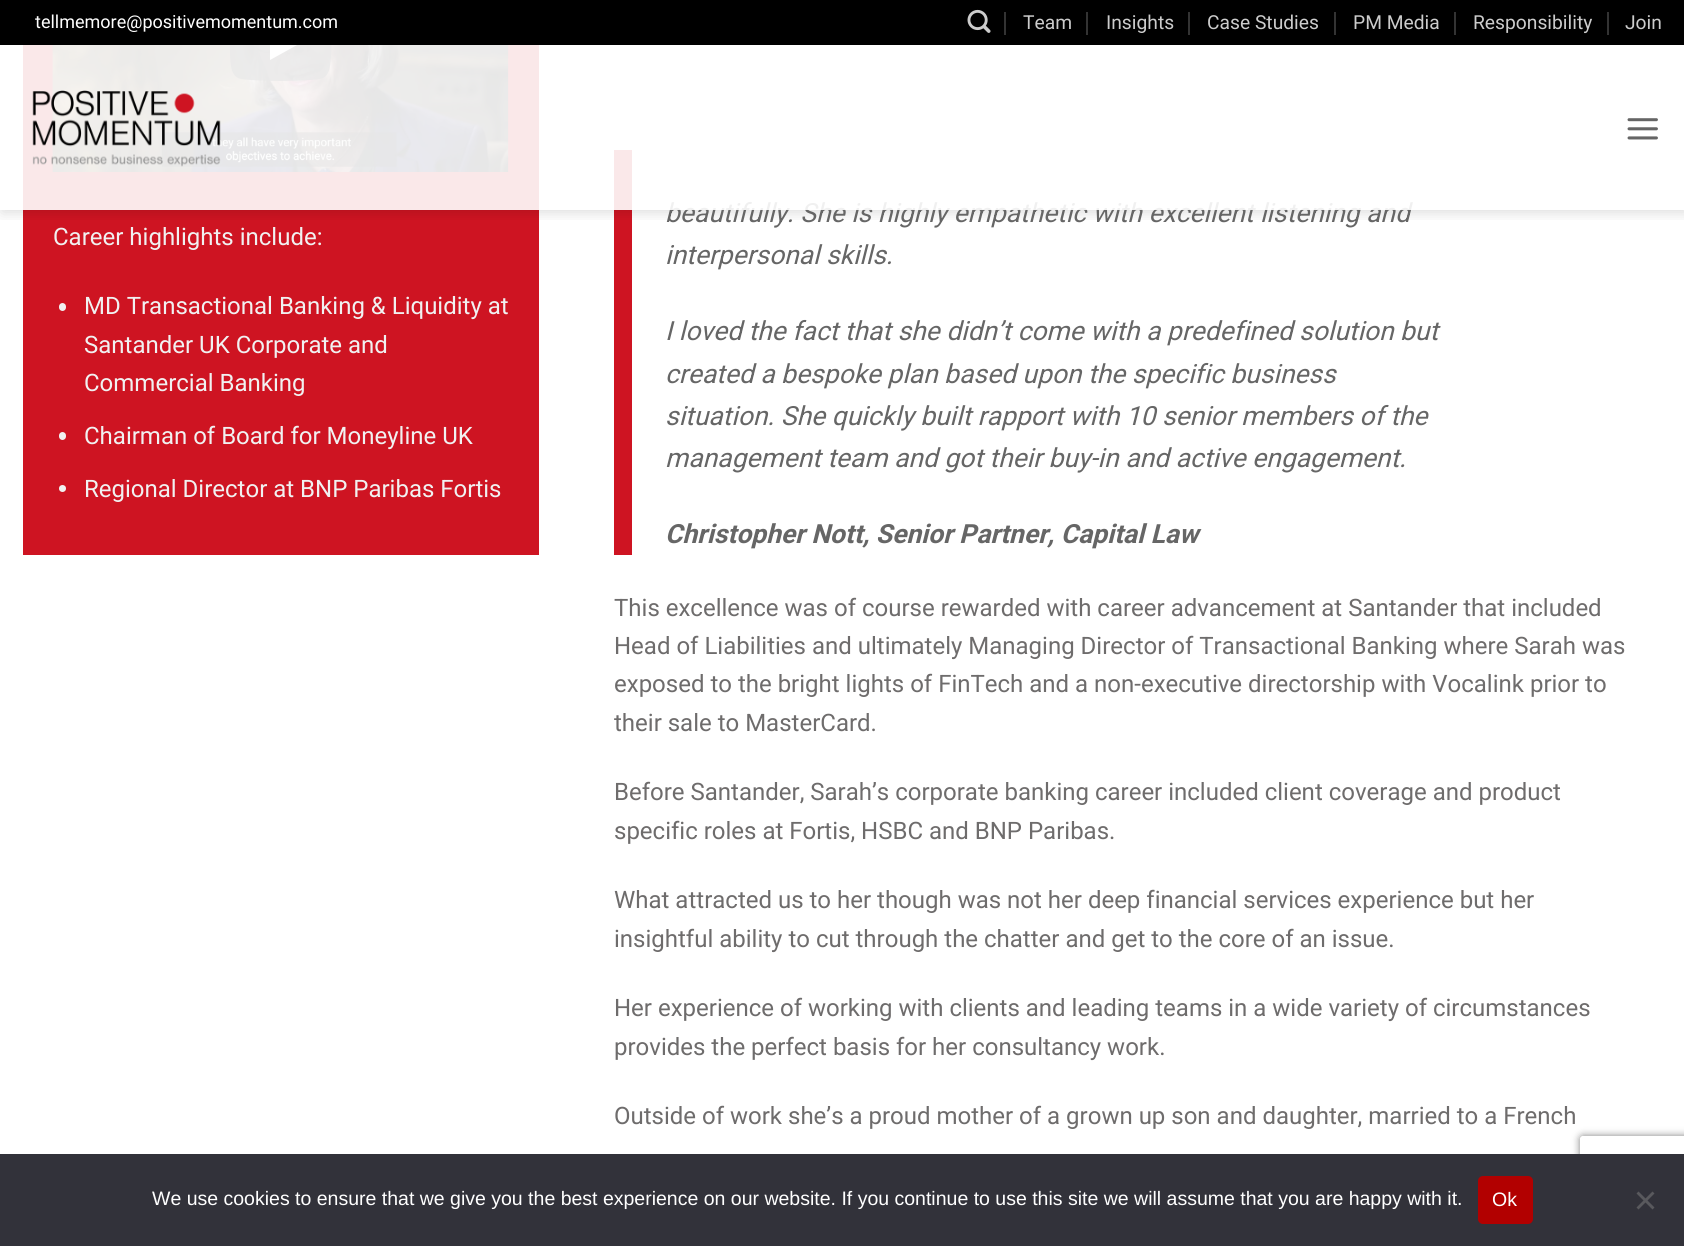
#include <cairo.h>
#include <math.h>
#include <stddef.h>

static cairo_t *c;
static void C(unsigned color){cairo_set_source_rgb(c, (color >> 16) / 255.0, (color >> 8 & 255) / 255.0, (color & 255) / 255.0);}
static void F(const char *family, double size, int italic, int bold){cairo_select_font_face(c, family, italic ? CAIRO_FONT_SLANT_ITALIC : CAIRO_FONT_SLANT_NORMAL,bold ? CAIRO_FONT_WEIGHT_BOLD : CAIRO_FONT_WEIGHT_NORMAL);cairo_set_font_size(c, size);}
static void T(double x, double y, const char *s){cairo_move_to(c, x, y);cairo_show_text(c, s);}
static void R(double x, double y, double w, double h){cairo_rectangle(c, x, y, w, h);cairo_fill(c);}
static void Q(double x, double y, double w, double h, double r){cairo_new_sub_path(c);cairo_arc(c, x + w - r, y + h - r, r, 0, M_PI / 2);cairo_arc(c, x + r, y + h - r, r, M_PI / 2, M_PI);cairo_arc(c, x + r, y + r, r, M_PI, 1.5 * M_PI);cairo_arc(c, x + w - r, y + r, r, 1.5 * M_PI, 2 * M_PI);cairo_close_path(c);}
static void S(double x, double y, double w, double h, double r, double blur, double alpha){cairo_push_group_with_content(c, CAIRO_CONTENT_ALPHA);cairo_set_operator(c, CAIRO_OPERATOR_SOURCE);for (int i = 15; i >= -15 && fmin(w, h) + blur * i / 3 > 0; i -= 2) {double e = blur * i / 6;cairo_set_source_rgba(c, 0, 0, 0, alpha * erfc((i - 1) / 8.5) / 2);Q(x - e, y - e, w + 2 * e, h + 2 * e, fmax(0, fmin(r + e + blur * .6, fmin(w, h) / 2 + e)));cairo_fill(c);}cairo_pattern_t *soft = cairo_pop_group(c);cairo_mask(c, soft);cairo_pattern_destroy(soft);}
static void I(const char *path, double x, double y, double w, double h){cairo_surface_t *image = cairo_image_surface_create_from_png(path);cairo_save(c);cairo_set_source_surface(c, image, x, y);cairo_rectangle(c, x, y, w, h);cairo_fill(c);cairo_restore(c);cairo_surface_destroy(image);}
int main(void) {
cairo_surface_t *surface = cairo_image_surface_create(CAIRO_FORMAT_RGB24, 1684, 1246);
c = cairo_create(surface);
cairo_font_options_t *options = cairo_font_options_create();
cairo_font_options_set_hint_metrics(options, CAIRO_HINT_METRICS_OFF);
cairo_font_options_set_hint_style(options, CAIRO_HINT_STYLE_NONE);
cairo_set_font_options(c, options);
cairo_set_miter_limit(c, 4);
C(0xffffff);
cairo_paint(c);
C(0xce1422);
R(23,45,516,510);
I("4.png",52,45,457,127);
I("5.png",230,45,102,36);
R(614,150,18,405);
cairo_save(c);
cairo_rectangle(c,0,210,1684,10);
cairo_clip(c);
C(0x000000);
S(2,2,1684,210,0,7.5,.15);
cairo_restore(c);
C(0x000000);
R(0,0,1684,45);
F("Roboto",18,0,0);
C(0xffffff);
T(35,28,"tellmemore@positivemomentum.com");
I("1.png",967,9,24,24);
C(0x333333);
R(1004,12,2,23);
F("Roboto",19.25,0,0);
C(0xcccccc);
T(1023,29,"Team");
C(0x333333);
R(1086,12,2,23);
C(0xcccccc);
T(1106,29,"Insights");
C(0x333333);
R(1188,12,2,23);
C(0xcccccc);
T(1207,29,"Case Studies");
C(0x333333);
R(1334,12,2,23);
C(0xcccccc);
T(1353,29,"PM Media");
C(0x333333);
R(1454,12,2,23);
C(0xcccccc);
T(1473,29,"Responsibility");
C(0x333333);
R(1607,12,2,23);
C(0xcccccc);
T(1625,29,"Join");
F("Roboto",26.4,1,0);
C(0x666666);
T(665,222,"beautifully. She is highly empathetic with excellent listening and");
cairo_set_source_rgba(c,1,1,1,0.9);
R(23,45,1390,165);
I("2.png",32,90,189,77);
I("3.png",1627,118,31,22);
F("Roboto",24,0,0);
C(0xf1f1f1);
T(53,245,"Career highlights include:");
Q(59,303,7,8,3.5);
cairo_fill(c);
T(84,314,"MD Transactional Banking & Liquidity at");
T(84,353,"Santander UK Corporate and");
T(84,391,"Commercial Banking");
Q(59,432,7,8,3.5);
cairo_fill(c);
T(84,444,"Chairman of Board for Moneyline UK");
cairo_new_path(c);
cairo_arc(c,62.5,488.5,3.5,0,2 * M_PI);
cairo_fill(c);
T(84,497,"Regional Director at BNP Paribas Fortis");
F("Roboto",26.4,1,0);
C(0x666666);
T(665,264,"interpersonal skills.");
T(665,340,"I loved the fact that she didn’t come with a predefined solution but");
T(665,383,"created a bespoke plan based upon the specific business");
T(665,425,"situation. She quickly built rapport with 10 senior members of the");
T(665,467,"management team and got their buy-in and active engagement.");
F("Roboto",26.4,1,1);
T(665,543,"Christopher Nott, Senior Partner, Capital Law");
F("Roboto",24,0,0);
C(0x6e6c6c);
T(614,616,"This excellence was of course rewarded with career advancement at Santander that included");
T(614,654,"Head of Liabilities and ultimately Managing Director of Transactional Banking where Sarah was");
T(614,692,"exposed to the bright lights of FinTech and a non-executive directorship with Vocalink prior to");
T(614,731,"their sale to MasterCard.");
T(614,800,"Before Santander, Sarah’s corporate banking career included client coverage and product");
T(614,839,"specific roles at Fortis, HSBC and BNP Paribas.");
T(614,908,"What attracted us to her though was not her deep financial services experience but her");
T(614,947,"insightful ability to cut through the chatter and get to the core of an issue.");
T(614,1016,"Her experience of working with clients and leading teams in a wide variety of circumstances");
T(614,1055,"provides the perfect basis for her consultancy work.");
cairo_save(c);
cairo_set_fill_rule(c,CAIRO_FILL_RULE_EVEN_ODD);
cairo_new_path(c);
cairo_move_to(c,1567,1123);
cairo_line_to(c,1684,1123);
cairo_line_to(c,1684,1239);
cairo_line_to(c,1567,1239);
cairo_close_path(c);
cairo_move_to(c,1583,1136);
cairo_line_to(c,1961,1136);
cairo_curve_to(c,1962.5,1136,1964,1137.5,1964,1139);
cairo_line_to(c,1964,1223);
cairo_curve_to(c,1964,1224.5,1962.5,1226,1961,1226);
cairo_line_to(c,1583,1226);
cairo_curve_to(c,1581.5,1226,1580,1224.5,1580,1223);
cairo_line_to(c,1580,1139);
cairo_curve_to(c,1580,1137.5,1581.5,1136,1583,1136);
cairo_close_path(c);
cairo_clip(c);
C(0x808080);
S(1580,1136,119,90,3,4,1);
cairo_restore(c);
T(614,1124,"Outside of work she’s a proud mother of a grown up son and daughter, married to a French");
C(0x32323a);
R(0,1154,1684,92);
F("Liberation Sans",19.5,0,0);
C(0xffffff);
T(152,1205,"We use cookies to ensure that we give you the best experience on our website. If you continue to use this site we will assume that you are happy with it.");
C(0xb20000);
Q(1478,1176,55,48,5);
cairo_fill(c);
C(0xffffff);
T(1492,1206,"Ok");
C(0x59595d);
cairo_new_path(c);
cairo_move_to(c,1652.5,1191.5);
cairo_line_to(c,1654.5,1193.5);
cairo_line_to(c,1638.5,1209.5);
cairo_line_to(c,1636.5,1207.5);
cairo_close_path(c);
cairo_fill(c);
cairo_new_path(c);
cairo_move_to(c,1636.5,1193.5);
cairo_line_to(c,1638.5,1191.5);
cairo_line_to(c,1654.5,1207.5);
cairo_line_to(c,1652.5,1209.5);
cairo_close_path(c);
cairo_fill(c);
cairo_surface_write_to_png(surface, "o.png");
cairo_font_options_destroy(options);
cairo_destroy(c);
cairo_surface_destroy(surface);
return 0;
}
